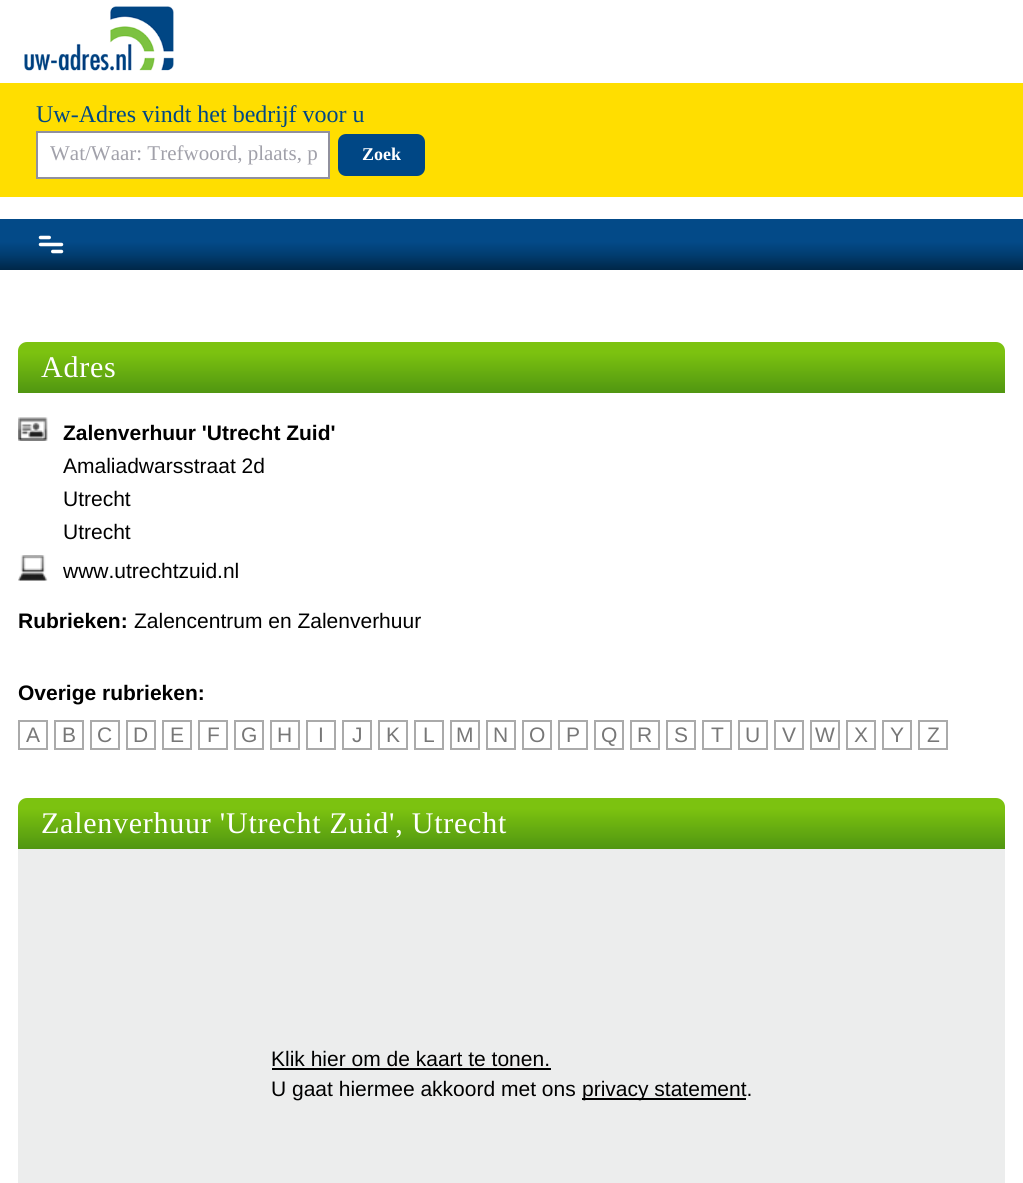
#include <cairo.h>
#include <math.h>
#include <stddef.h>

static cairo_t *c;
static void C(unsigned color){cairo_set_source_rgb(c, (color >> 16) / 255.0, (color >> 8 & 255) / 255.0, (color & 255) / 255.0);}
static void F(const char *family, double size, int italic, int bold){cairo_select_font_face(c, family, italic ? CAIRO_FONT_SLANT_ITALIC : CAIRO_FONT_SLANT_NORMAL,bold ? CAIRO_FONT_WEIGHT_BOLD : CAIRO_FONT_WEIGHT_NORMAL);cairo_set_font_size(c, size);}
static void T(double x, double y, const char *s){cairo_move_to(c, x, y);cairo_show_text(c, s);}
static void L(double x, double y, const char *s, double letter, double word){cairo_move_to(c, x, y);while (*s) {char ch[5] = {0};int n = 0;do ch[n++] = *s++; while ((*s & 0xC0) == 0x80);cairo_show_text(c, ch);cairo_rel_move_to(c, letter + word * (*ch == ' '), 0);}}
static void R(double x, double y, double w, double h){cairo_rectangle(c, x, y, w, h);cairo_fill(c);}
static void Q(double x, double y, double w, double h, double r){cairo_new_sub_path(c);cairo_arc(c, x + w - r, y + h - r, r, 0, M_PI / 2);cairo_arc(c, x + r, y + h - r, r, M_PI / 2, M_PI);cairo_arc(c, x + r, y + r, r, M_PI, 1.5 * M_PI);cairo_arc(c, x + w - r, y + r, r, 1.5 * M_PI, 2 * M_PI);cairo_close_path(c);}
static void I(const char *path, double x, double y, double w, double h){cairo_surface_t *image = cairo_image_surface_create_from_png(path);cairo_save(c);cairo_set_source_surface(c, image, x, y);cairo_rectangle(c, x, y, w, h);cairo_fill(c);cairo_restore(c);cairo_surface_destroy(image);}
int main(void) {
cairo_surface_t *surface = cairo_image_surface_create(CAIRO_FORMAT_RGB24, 1023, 1183);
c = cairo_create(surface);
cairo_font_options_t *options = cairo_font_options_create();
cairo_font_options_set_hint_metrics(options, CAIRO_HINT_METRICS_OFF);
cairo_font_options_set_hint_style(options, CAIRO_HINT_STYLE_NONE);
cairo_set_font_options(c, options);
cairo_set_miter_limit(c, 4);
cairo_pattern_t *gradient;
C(0xffffff);
cairo_paint(c);
I("1.png",24,6,150,65);
C(0xffde00);
R(0,83,1023,114);
F("Liberation Serif",24,0,0);
C(0x004785);
T(36,122,"Uw-Adres vindt het bedrijf voor u");
C(0xffffff);
cairo_rectangle(c,37,132,292,46);
cairo_fill_preserve(c);
C(0x90909e);
cairo_stroke(c);
F("Liberation Serif",21,0,0);
C(0xa1a1aa);
T(50,160,"Wat/Waar: Trefwoord, plaats, p");
C(0x004785);
Q(338,134,87,42,8);
cairo_fill(c);
F("Liberation Serif",18,0,1);
C(0xffffff);
T(362,160,"Zoek");
gradient = cairo_pattern_create_linear(512,270,512,219);
cairo_pattern_add_color_stop_rgba(gradient,0,0,0.153,0.282,1);
cairo_pattern_add_color_stop_rgba(gradient,.3,0.004,0.239,0.439,1);
cairo_pattern_add_color_stop_rgba(gradient,.55,0.012,0.29,0.533,1);
cairo_set_source(c,gradient);
cairo_pattern_destroy(gradient);
R(0,219,1023,51);
I("2.png",38,235,26,19);
gradient = cairo_pattern_create_linear(512,393,512,342);
cairo_pattern_add_color_stop_rgba(gradient,0,0.314,0.588,0.067,1);
cairo_pattern_add_color_stop_rgba(gradient,.79,0.486,0.761,0.063,1);
cairo_set_source(c,gradient);
cairo_pattern_destroy(gradient);
cairo_new_path(c);
cairo_move_to(c,27,342);
cairo_line_to(c,996,342);
cairo_curve_to(c,1001,342,1005,346,1005,351);
cairo_line_to(c,1005,393);
cairo_line_to(c,18,393);
cairo_line_to(c,18,351);
cairo_curve_to(c,18,346,22,342,27,342);
cairo_close_path(c);
cairo_fill(c);
F("Liberation Serif",30,0,0);
C(0xffffff);
L(41,377,"Adres",.75,0);
I("3.png",18,417,30,24);
F("Liberation Sans",21,0,1);
C(0x000000);
T(63,440,"Zalenverhuur 'Utrecht Zuid'");
F("Liberation Sans",21,0,0);
T(63,473,"Amaliadwarsstraat 2d");
T(63,506,"Utrecht");
T(63,539,"Utrecht");
I("4.png",18,555,30,26);
T(63,578,"www.utrechtzuid.nl");
F("Liberation Sans",21,0,1);
T(18,628,"Rubrieken:");
F("Liberation Sans",21,0,0);
T(134,628,"Zalencentrum en Zalenverhuur");
F("Liberation Sans",21,0,1);
T(18,700,"Overige rubrieken:");
cairo_rectangle(c,19,721,28,28);
C(0xaaaaaa);
cairo_stroke(c);
F("Liberation Sans",21,0,0);
C(0x777777);
T(26,742,"A");
cairo_rectangle(c,55,721,28,28);
C(0xaaaaaa);
cairo_stroke(c);
C(0x777777);
T(62,742,"B");
cairo_rectangle(c,91,721,28,28);
C(0xaaaaaa);
cairo_stroke(c);
C(0x777777);
T(97,742,"C");
cairo_rectangle(c,127,721,28,28);
C(0xaaaaaa);
cairo_stroke(c);
C(0x777777);
T(133,742,"D");
cairo_rectangle(c,163,721,28,28);
C(0xaaaaaa);
cairo_stroke(c);
C(0x777777);
T(170,742,"E");
cairo_rectangle(c,199,721,28,28);
C(0xaaaaaa);
cairo_stroke(c);
C(0x777777);
T(207,742,"F");
cairo_rectangle(c,235,721,28,28);
C(0xaaaaaa);
cairo_stroke(c);
C(0x777777);
T(241,742,"G");
cairo_rectangle(c,271,721,28,28);
C(0xaaaaaa);
cairo_stroke(c);
C(0x777777);
T(277,742,"H");
cairo_rectangle(c,307,721,28,28);
C(0xaaaaaa);
cairo_stroke(c);
C(0x777777);
T(318,742,"I");
cairo_rectangle(c,343,721,28,28);
C(0xaaaaaa);
cairo_stroke(c);
C(0x777777);
T(352,742,"J");
cairo_rectangle(c,379,721,28,28);
C(0xaaaaaa);
cairo_stroke(c);
C(0x777777);
T(386,742,"K");
cairo_rectangle(c,415,721,28,28);
C(0xaaaaaa);
cairo_stroke(c);
C(0x777777);
T(423,742,"L");
cairo_rectangle(c,451,721,28,28);
C(0xaaaaaa);
cairo_stroke(c);
C(0x777777);
T(456,742,"M");
cairo_rectangle(c,487,721,28,28);
C(0xaaaaaa);
cairo_stroke(c);
C(0x777777);
T(493,742,"N");
cairo_rectangle(c,523,721,28,28);
C(0xaaaaaa);
cairo_stroke(c);
C(0x777777);
T(529,742,"O");
cairo_rectangle(c,559,721,28,28);
C(0xaaaaaa);
cairo_stroke(c);
C(0x777777);
T(566,742,"P");
cairo_rectangle(c,595,721,28,28);
C(0xaaaaaa);
cairo_stroke(c);
C(0x777777);
T(601,742,"Q");
cairo_rectangle(c,631,721,28,28);
C(0xaaaaaa);
cairo_stroke(c);
C(0x777777);
T(637,742,"R");
cairo_rectangle(c,667,721,28,28);
C(0xaaaaaa);
cairo_stroke(c);
C(0x777777);
T(674,742,"S");
cairo_rectangle(c,703,721,28,28);
C(0xaaaaaa);
cairo_stroke(c);
C(0x777777);
T(711,742,"T");
cairo_rectangle(c,739,721,28,28);
C(0xaaaaaa);
cairo_stroke(c);
C(0x777777);
T(745,742,"U");
cairo_rectangle(c,775,721,28,28);
C(0xaaaaaa);
cairo_stroke(c);
C(0x777777);
T(782,742,"V");
cairo_rectangle(c,811,721,28,28);
C(0xaaaaaa);
cairo_stroke(c);
C(0x777777);
T(815,742,"W");
cairo_rectangle(c,847,721,28,28);
C(0xaaaaaa);
cairo_stroke(c);
C(0x777777);
T(854,742,"X");
cairo_rectangle(c,883,721,28,28);
C(0xaaaaaa);
cairo_stroke(c);
C(0x777777);
T(890,742,"Y");
cairo_rectangle(c,919,721,28,28);
C(0xaaaaaa);
cairo_stroke(c);
C(0x777777);
T(927,742,"Z");
gradient = cairo_pattern_create_linear(512,849,512,798);
cairo_pattern_add_color_stop_rgba(gradient,0,0.314,0.588,0.067,1);
cairo_pattern_add_color_stop_rgba(gradient,.79,0.486,0.761,0.063,1);
cairo_set_source(c,gradient);
cairo_pattern_destroy(gradient);
cairo_new_path(c);
cairo_move_to(c,27,798);
cairo_line_to(c,996,798);
cairo_curve_to(c,1001,798,1005,802,1005,807);
cairo_line_to(c,1005,849);
cairo_line_to(c,18,849);
cairo_line_to(c,18,807);
cairo_curve_to(c,18,802,22,798,27,798);
cairo_close_path(c);
cairo_fill(c);
F("Liberation Serif",30,0,0);
C(0xffffff);
L(41,833,"Zalenverhuur 'Utrecht Zuid', Utrecht",.75,0);
C(0xeceded);
R(18,849,987,334);
F("Liberation Sans",21,0,0);
C(0x000000);
T(271,1066,"Klik hier om de kaart te tonen.");
R(272,1068,279,2);
T(271,1096,"U gaat hiermee akkoord met ons");
R(582,1098,164,2);
T(582,1096,"privacy statement.");
cairo_surface_write_to_png(surface, "o.png");
cairo_font_options_destroy(options);
cairo_destroy(c);
cairo_surface_destroy(surface);
return 0;
}
